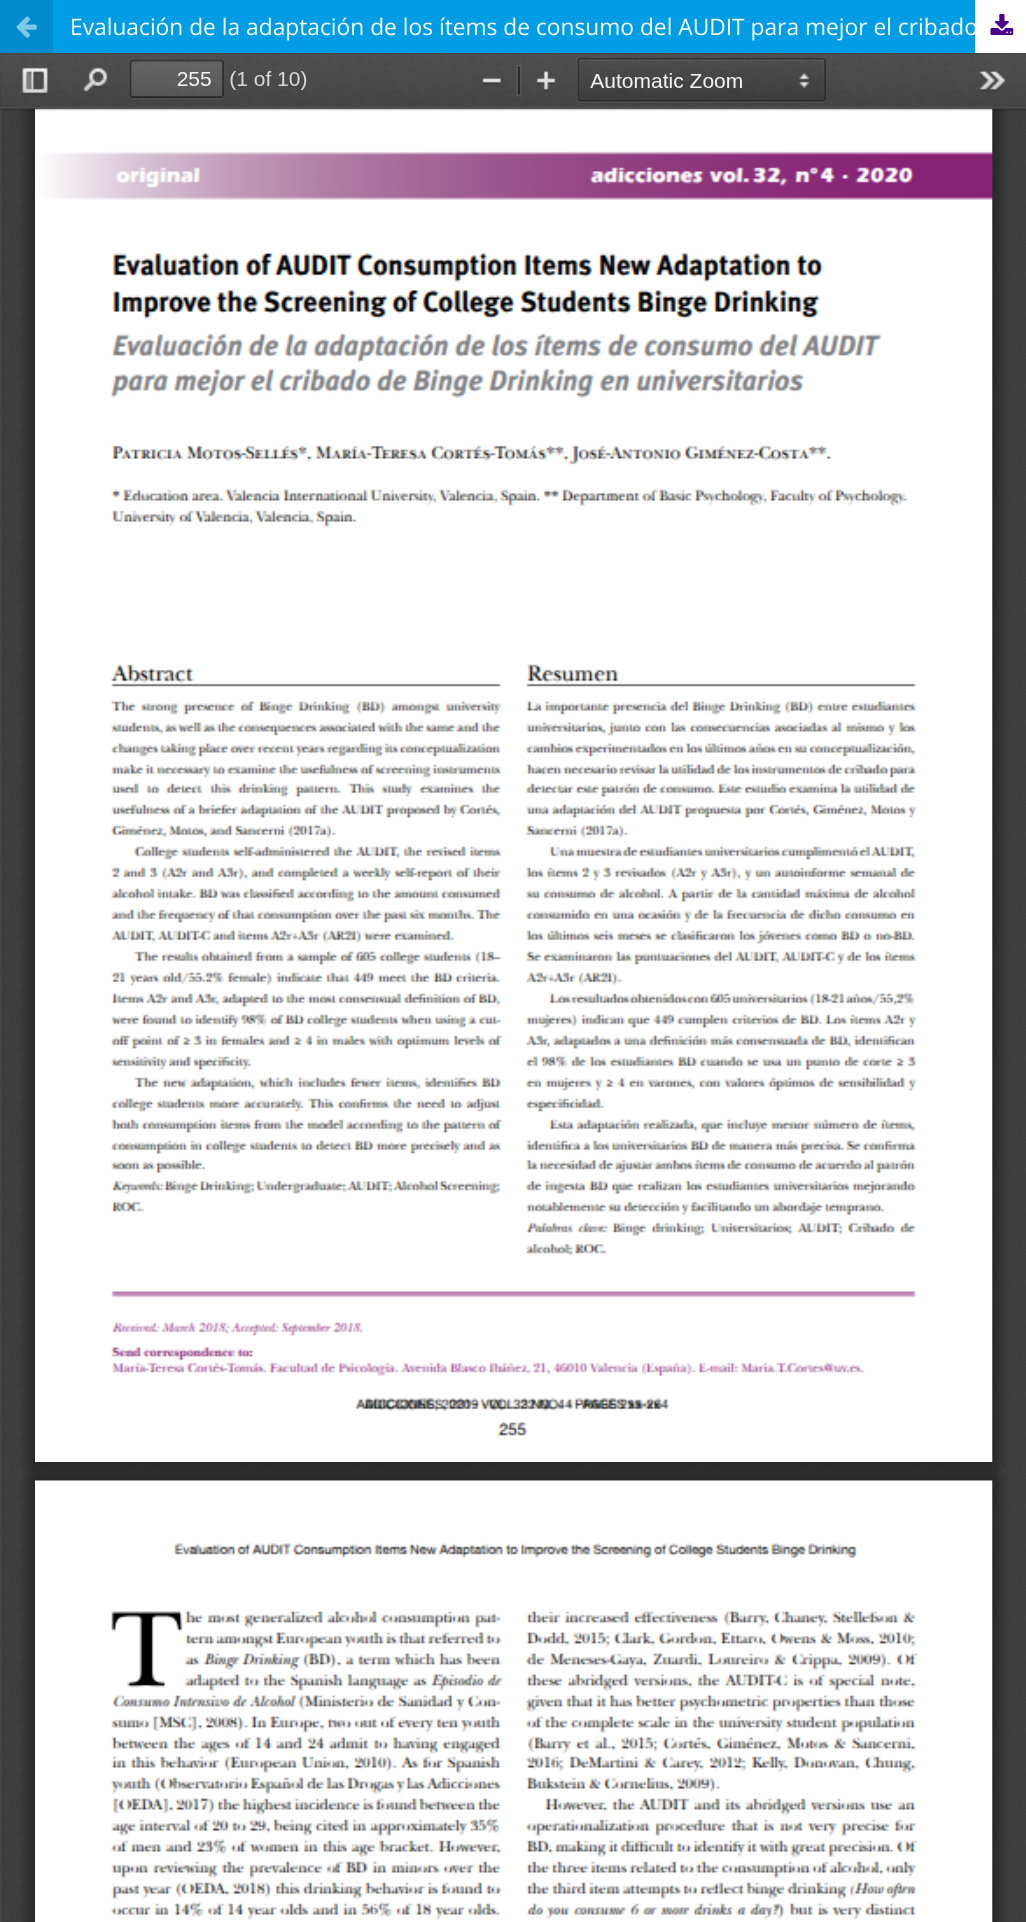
#include <cairo.h>
#include <math.h>
#include <stddef.h>

static cairo_t *c;
static void C(unsigned color){cairo_set_source_rgb(c, (color >> 16) / 255.0, (color >> 8 & 255) / 255.0, (color & 255) / 255.0);}
static void F(const char *family, double size, int italic, int bold){cairo_select_font_face(c, family, italic ? CAIRO_FONT_SLANT_ITALIC : CAIRO_FONT_SLANT_NORMAL,bold ? CAIRO_FONT_WEIGHT_BOLD : CAIRO_FONT_WEIGHT_NORMAL);cairo_set_font_size(c, size);}
static void T(double x, double y, const char *s){cairo_move_to(c, x, y);cairo_show_text(c, s);}
static void R(double x, double y, double w, double h){cairo_rectangle(c, x, y, w, h);cairo_fill(c);}
static void I(const char *path, double x, double y, double w, double h){cairo_surface_t *image = cairo_image_surface_create_from_png(path);cairo_save(c);cairo_set_source_surface(c, image, x, y);cairo_rectangle(c, x, y, w, h);cairo_fill(c);cairo_restore(c);cairo_surface_destroy(image);}
int main(void) {
cairo_surface_t *surface = cairo_image_surface_create(CAIRO_FORMAT_RGB24, 1026, 1922);
c = cairo_create(surface);
cairo_font_options_t *options = cairo_font_options_create();
cairo_font_options_set_hint_metrics(options, CAIRO_HINT_METRICS_OFF);
cairo_font_options_set_hint_style(options, CAIRO_HINT_STYLE_NONE);
cairo_set_font_options(c, options);
cairo_set_miter_limit(c, 4);
C(0xffffff);
cairo_paint(c);
C(0x009de5);
R(53,0,922,53);
C(0x008ccc);
R(0,0,53,53);
I("1.png",16,16,21,22);
F("Open Sans",22.75,0,0);
C(0xffffff);
T(70,35,"Evaluación de la adaptación de los ítems de consumo del AUDIT para mejor el cribado");
I("2.png",990,14,24,21);
I("3.png",0,53,1026,1869);
cairo_surface_write_to_png(surface, "o.png");
cairo_font_options_destroy(options);
cairo_destroy(c);
cairo_surface_destroy(surface);
return 0;
}
